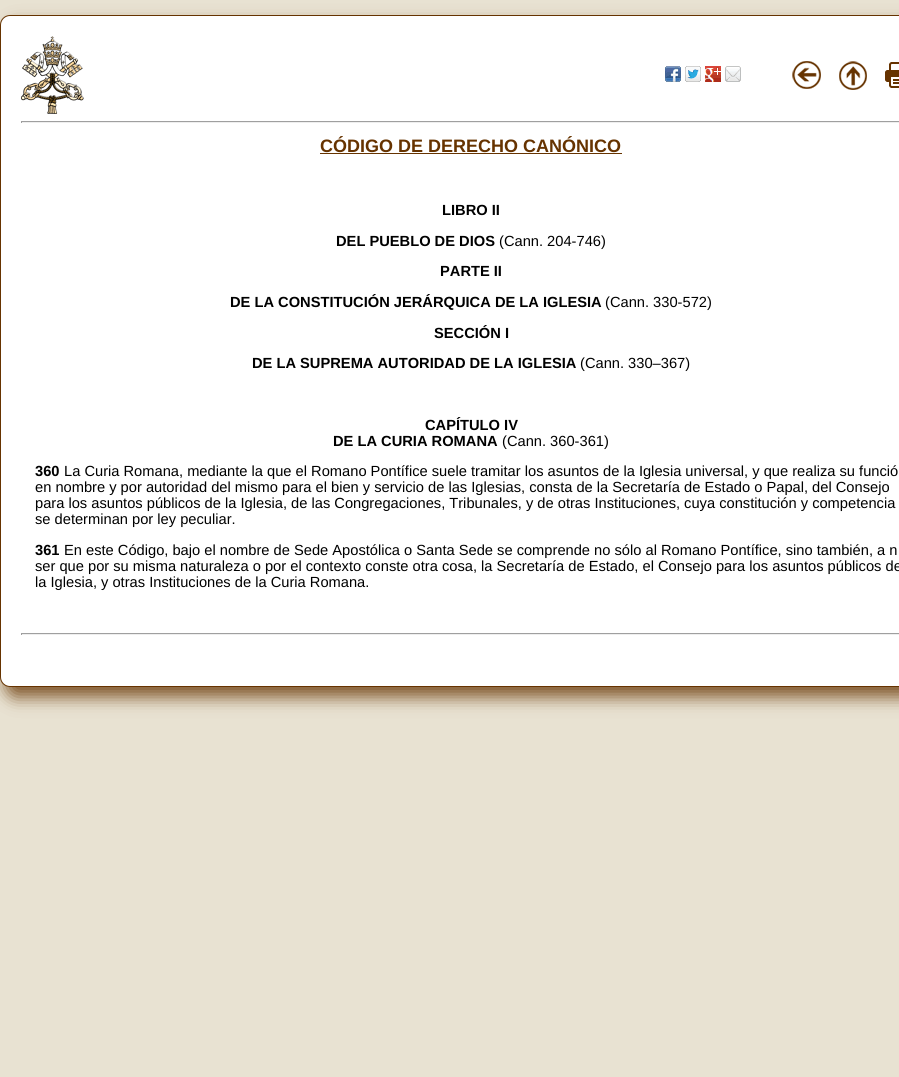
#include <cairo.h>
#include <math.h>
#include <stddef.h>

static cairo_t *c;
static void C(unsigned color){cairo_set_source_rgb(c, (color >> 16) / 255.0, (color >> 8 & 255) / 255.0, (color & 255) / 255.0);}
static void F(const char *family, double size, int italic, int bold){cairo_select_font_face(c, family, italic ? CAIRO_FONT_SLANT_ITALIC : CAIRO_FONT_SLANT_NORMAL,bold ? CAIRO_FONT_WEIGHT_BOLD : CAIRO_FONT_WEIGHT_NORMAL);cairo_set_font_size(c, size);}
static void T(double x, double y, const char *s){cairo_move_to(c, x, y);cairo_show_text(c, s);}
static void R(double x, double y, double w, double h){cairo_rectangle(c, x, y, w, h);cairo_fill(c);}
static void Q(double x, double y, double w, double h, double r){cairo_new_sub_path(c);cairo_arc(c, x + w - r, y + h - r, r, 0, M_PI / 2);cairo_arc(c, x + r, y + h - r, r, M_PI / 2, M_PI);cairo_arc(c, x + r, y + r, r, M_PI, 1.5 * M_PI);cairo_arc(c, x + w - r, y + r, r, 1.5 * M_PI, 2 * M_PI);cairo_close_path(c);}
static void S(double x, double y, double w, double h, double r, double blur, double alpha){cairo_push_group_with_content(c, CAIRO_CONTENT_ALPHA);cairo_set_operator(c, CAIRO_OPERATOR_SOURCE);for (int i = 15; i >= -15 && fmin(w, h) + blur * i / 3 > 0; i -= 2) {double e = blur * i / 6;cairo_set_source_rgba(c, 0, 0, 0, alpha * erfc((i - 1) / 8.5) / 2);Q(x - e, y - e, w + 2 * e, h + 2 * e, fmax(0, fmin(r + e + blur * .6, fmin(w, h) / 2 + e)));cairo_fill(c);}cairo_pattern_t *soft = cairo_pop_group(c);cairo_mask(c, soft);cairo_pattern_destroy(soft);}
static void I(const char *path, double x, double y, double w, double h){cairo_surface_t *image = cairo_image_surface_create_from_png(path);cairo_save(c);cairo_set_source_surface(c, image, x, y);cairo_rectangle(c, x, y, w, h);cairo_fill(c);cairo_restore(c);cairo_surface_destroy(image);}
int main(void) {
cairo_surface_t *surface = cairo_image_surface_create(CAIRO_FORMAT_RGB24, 899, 1077);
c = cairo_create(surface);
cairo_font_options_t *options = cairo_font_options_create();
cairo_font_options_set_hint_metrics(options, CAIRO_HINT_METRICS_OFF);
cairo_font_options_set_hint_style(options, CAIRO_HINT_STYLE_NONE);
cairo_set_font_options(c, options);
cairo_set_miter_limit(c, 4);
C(0xe8e2d2);
cairo_paint(c);
C(0x663300);
S(6,25,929,672,10,8.5,.8);
C(0xffffff);
Q(.5,15.5,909,671,9.5);
cairo_fill_preserve(c);
C(0x663300);
cairo_set_line_width(c,1);
cairo_stroke(c);
I("1.png",21,36,63,78);
I("2.png",665,66,16,16);
I("3.png",685,66,16,16);
I("4.png",705,66,16,16);
I("5.png",725,66,16,16);
I("6.png",792,61,29,28);
I("7.png",839,61,28,29);
I("8.png",885,62,14,26);
C(0x9f9f9f);
R(21,121,878,1);
C(0xeeeeee);
R(21,122,878,1);
C(0x9f9f9f);
R(21,121,1,2);
F("Liberation Sans",18,0,1);
C(0x663300);
T(320,152,"CÓDIGO DE DERECHO CANÓNICO");
R(320,153,302,1);
F("Liberation Sans",14.67,0,1);
C(0x000000);
T(442,215,"LIBRO II");
T(336,246,"DEL PUEBLO DE DIOS");
F("Liberation Sans",14.67,0,0);
T(499,246,"(Cann. 204-746)");
F("Liberation Sans",14.67,0,1);
T(440,276,"PARTE II");
T(230,307,"DE LA CONSTITUCIÓN JERÁRQUICA DE LA IGLESIA");
F("Liberation Sans",14.67,0,0);
T(605,307,"(Cann. 330-572)");
F("Liberation Sans",14.67,0,1);
T(434,338,"SECCIÓN I");
T(252,368,"DE LA SUPREMA AUTORIDAD DE LA IGLESIA");
F("Liberation Sans",14.67,0,0);
T(580,368,"(Cann. 330–367)");
F("Liberation Sans",14.67,0,1);
T(425,430,"CAPÍTULO IV");
T(333,446,"DE LA CURIA ROMANA");
F("Liberation Sans",14.67,0,0);
T(502,446,"(Cann. 360-361)");
F("Liberation Sans",14.67,0,1);
T(35,476,"360");
F("Liberation Sans",14.67,0,0);
T(64,476,"La Curia Romana, mediante la que el Romano Pontífice suele tramitar los asuntos de la Iglesia universal, y que realiza su funció");
T(35,492,"en nombre y por autoridad del mismo para el bien y servicio de las Iglesias, consta de la Secretaría de Estado o Papal, del Consejo");
T(35,508,"para los asuntos públicos de la Iglesia, de las Congregaciones, Tribunales, y de otras Instituciones, cuya constitución y competencia");
T(35,524,"se determinan por ley peculiar.");
F("Liberation Sans",14.67,0,1);
T(35,555,"361");
F("Liberation Sans",14.67,0,0);
T(64,555,"En este Código, bajo el nombre de Sede Apostólica o Santa Sede se comprende no sólo al Romano Pontífice, sino también, a n");
T(35,571,"ser que por su misma naturaleza o por el contexto conste otra cosa, la Secretaría de Estado, el Consejo para los asuntos públicos de");
T(35,587,"la Iglesia, y otras Instituciones de la Curia Romana.");
C(0x9f9f9f);
R(21,633,878,1);
C(0xeeeeee);
R(21,634,878,1);
C(0x9f9f9f);
R(21,633,1,2);
cairo_surface_write_to_png(surface, "o.png");
cairo_font_options_destroy(options);
cairo_destroy(c);
cairo_surface_destroy(surface);
return 0;
}
